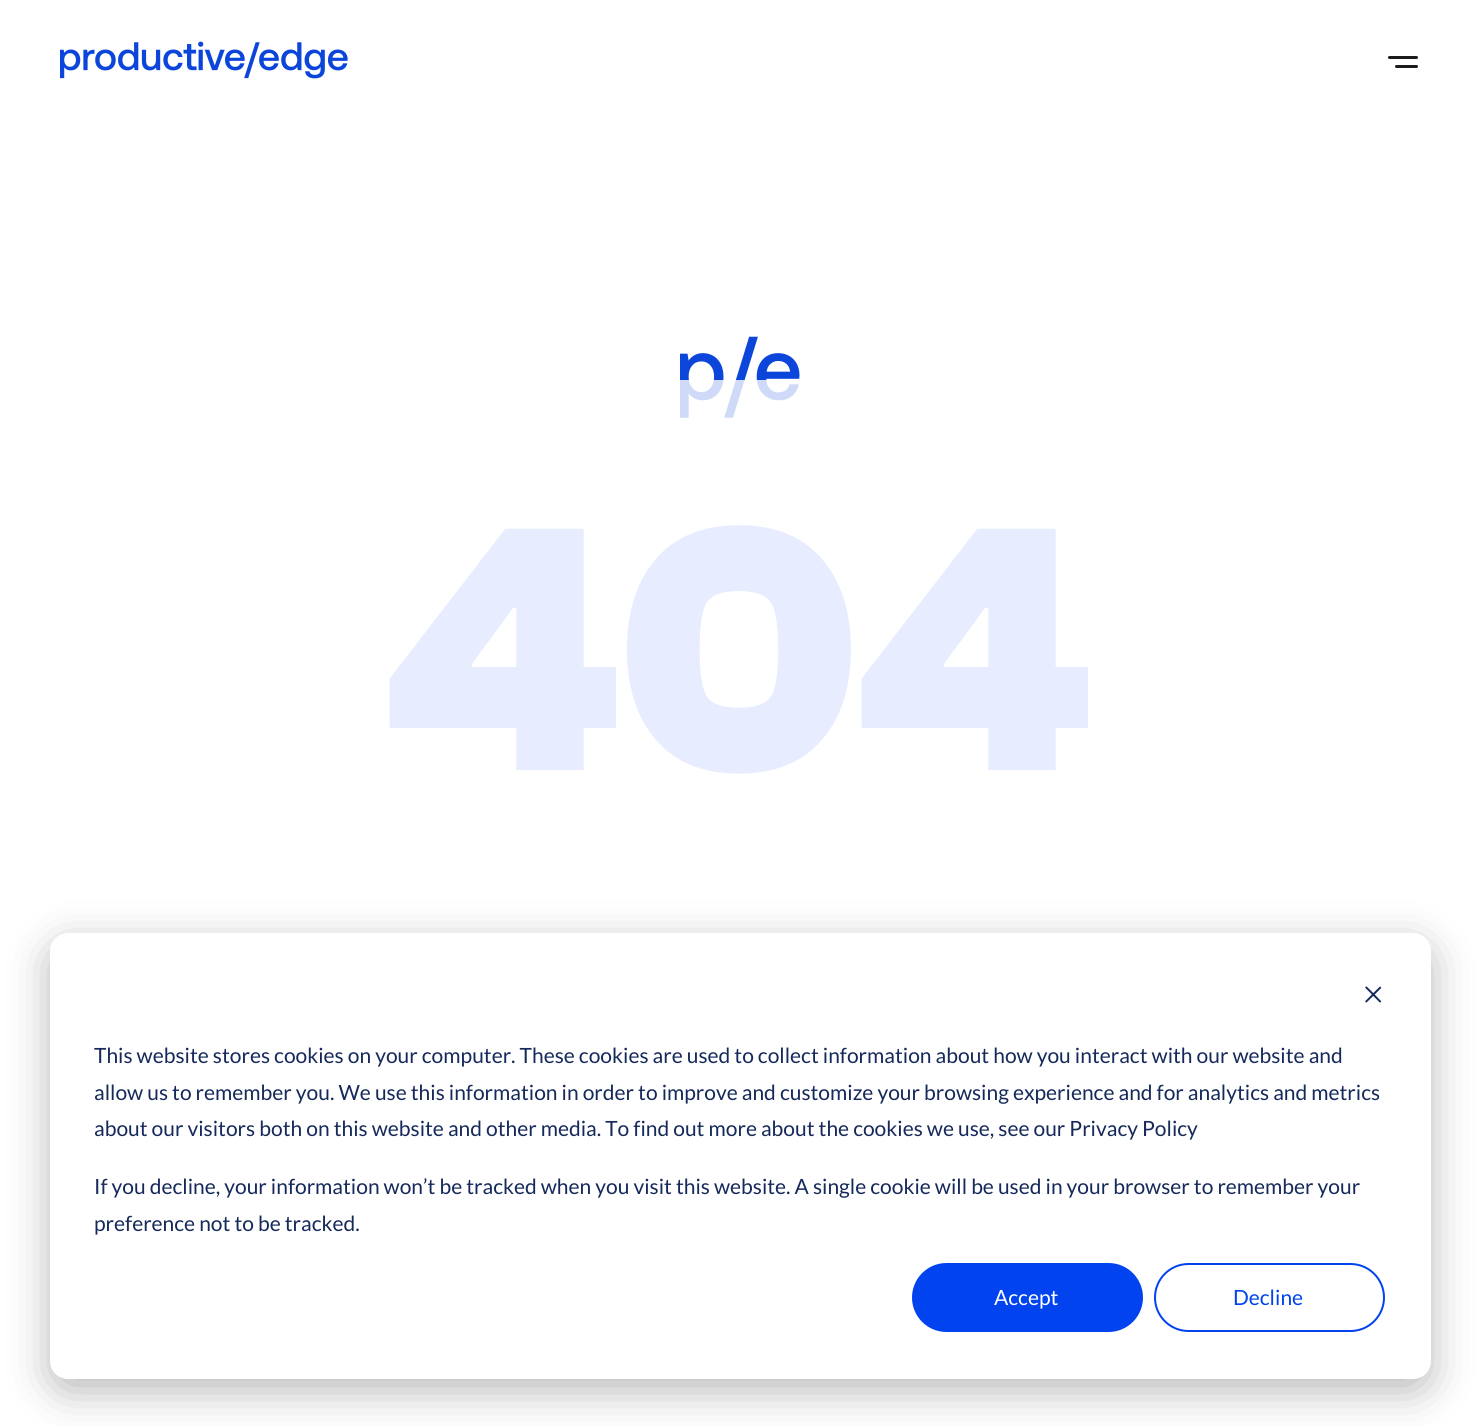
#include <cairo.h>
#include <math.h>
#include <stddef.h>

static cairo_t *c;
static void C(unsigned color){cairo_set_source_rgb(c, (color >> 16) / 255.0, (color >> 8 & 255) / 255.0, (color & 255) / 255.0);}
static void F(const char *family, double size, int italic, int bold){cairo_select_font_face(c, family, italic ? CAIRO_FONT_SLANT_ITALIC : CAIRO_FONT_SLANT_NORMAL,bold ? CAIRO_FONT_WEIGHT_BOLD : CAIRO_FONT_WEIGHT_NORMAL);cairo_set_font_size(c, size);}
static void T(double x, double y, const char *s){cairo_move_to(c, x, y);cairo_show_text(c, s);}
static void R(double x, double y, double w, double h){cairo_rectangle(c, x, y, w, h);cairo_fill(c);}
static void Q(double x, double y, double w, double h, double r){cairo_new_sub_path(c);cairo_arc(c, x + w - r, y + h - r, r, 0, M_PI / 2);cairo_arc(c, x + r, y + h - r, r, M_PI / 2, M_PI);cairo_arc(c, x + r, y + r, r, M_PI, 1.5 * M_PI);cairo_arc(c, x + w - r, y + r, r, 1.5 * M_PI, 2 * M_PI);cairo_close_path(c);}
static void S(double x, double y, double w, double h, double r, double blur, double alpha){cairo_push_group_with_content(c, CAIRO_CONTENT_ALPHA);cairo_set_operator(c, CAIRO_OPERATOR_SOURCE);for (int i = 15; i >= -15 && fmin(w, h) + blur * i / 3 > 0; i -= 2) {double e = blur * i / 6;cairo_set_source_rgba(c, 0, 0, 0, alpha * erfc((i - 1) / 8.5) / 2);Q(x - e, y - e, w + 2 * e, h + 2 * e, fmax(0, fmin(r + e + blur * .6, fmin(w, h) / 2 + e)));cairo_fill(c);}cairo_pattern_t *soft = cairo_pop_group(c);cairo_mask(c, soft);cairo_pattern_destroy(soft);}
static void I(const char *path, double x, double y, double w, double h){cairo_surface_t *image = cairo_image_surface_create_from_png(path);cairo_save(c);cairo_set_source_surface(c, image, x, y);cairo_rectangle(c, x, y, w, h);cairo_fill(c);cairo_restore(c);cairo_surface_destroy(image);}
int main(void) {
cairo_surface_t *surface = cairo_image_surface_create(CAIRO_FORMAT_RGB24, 1477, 1426);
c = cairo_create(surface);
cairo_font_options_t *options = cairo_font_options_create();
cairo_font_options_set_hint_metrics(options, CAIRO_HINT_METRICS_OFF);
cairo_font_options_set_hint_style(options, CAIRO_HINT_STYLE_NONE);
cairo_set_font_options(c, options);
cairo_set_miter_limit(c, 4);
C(0xffffff);
cairo_paint(c);
I("1.png",60,41,288,38);
C(0x1b1b1c);
Q(1388,56,30,3,1.5);
cairo_fill(c);
Q(1395,65,23,3,1.5);
cairo_fill(c);
I("2.png",680,336,120,82);
cairo_set_source_rgba(c,1,1,1,0.8);
R(680,380,119,38);
F("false",360,0,1);
C(0xe7edfe);
T(386,770,"404");
C(0x000000);
S(50,945,1381,446,18,21,.28);
C(0xffffff);
Q(50,933,1381,446,18);
cairo_fill(c);
I("3.png",1365,986,17,17);
F("Lato",21,0,0);
C(0x15295a);
T(94,1063,"This website stores cookies on your computer. These cookies are used to collect information about how you interact with our website and");
T(94,1100,"allow us to remember you. We use this information in order to improve and customize your browsing experience and for analytics and metrics");
T(94,1136,"about our visitors both on this website and other media. To find out more about the cookies we use, see our Privacy Policy");
T(94,1194,"If you decline, your information won’t be tracked when you visit this website. A single cookie will be used in your browser to remember your");
T(94,1231,"preference not to be tracked.");
C(0x0043ef);
Q(913,1264,229,67,33.5);
cairo_fill_preserve(c);
cairo_stroke(c);
C(0xffffff);
T(994,1305,"Accept");
Q(1155,1264,229,67,33.5);
C(0x0043ef);
cairo_stroke(c);
T(1233,1305,"Decline");
cairo_surface_write_to_png(surface, "o.png");
cairo_font_options_destroy(options);
cairo_destroy(c);
cairo_surface_destroy(surface);
return 0;
}
